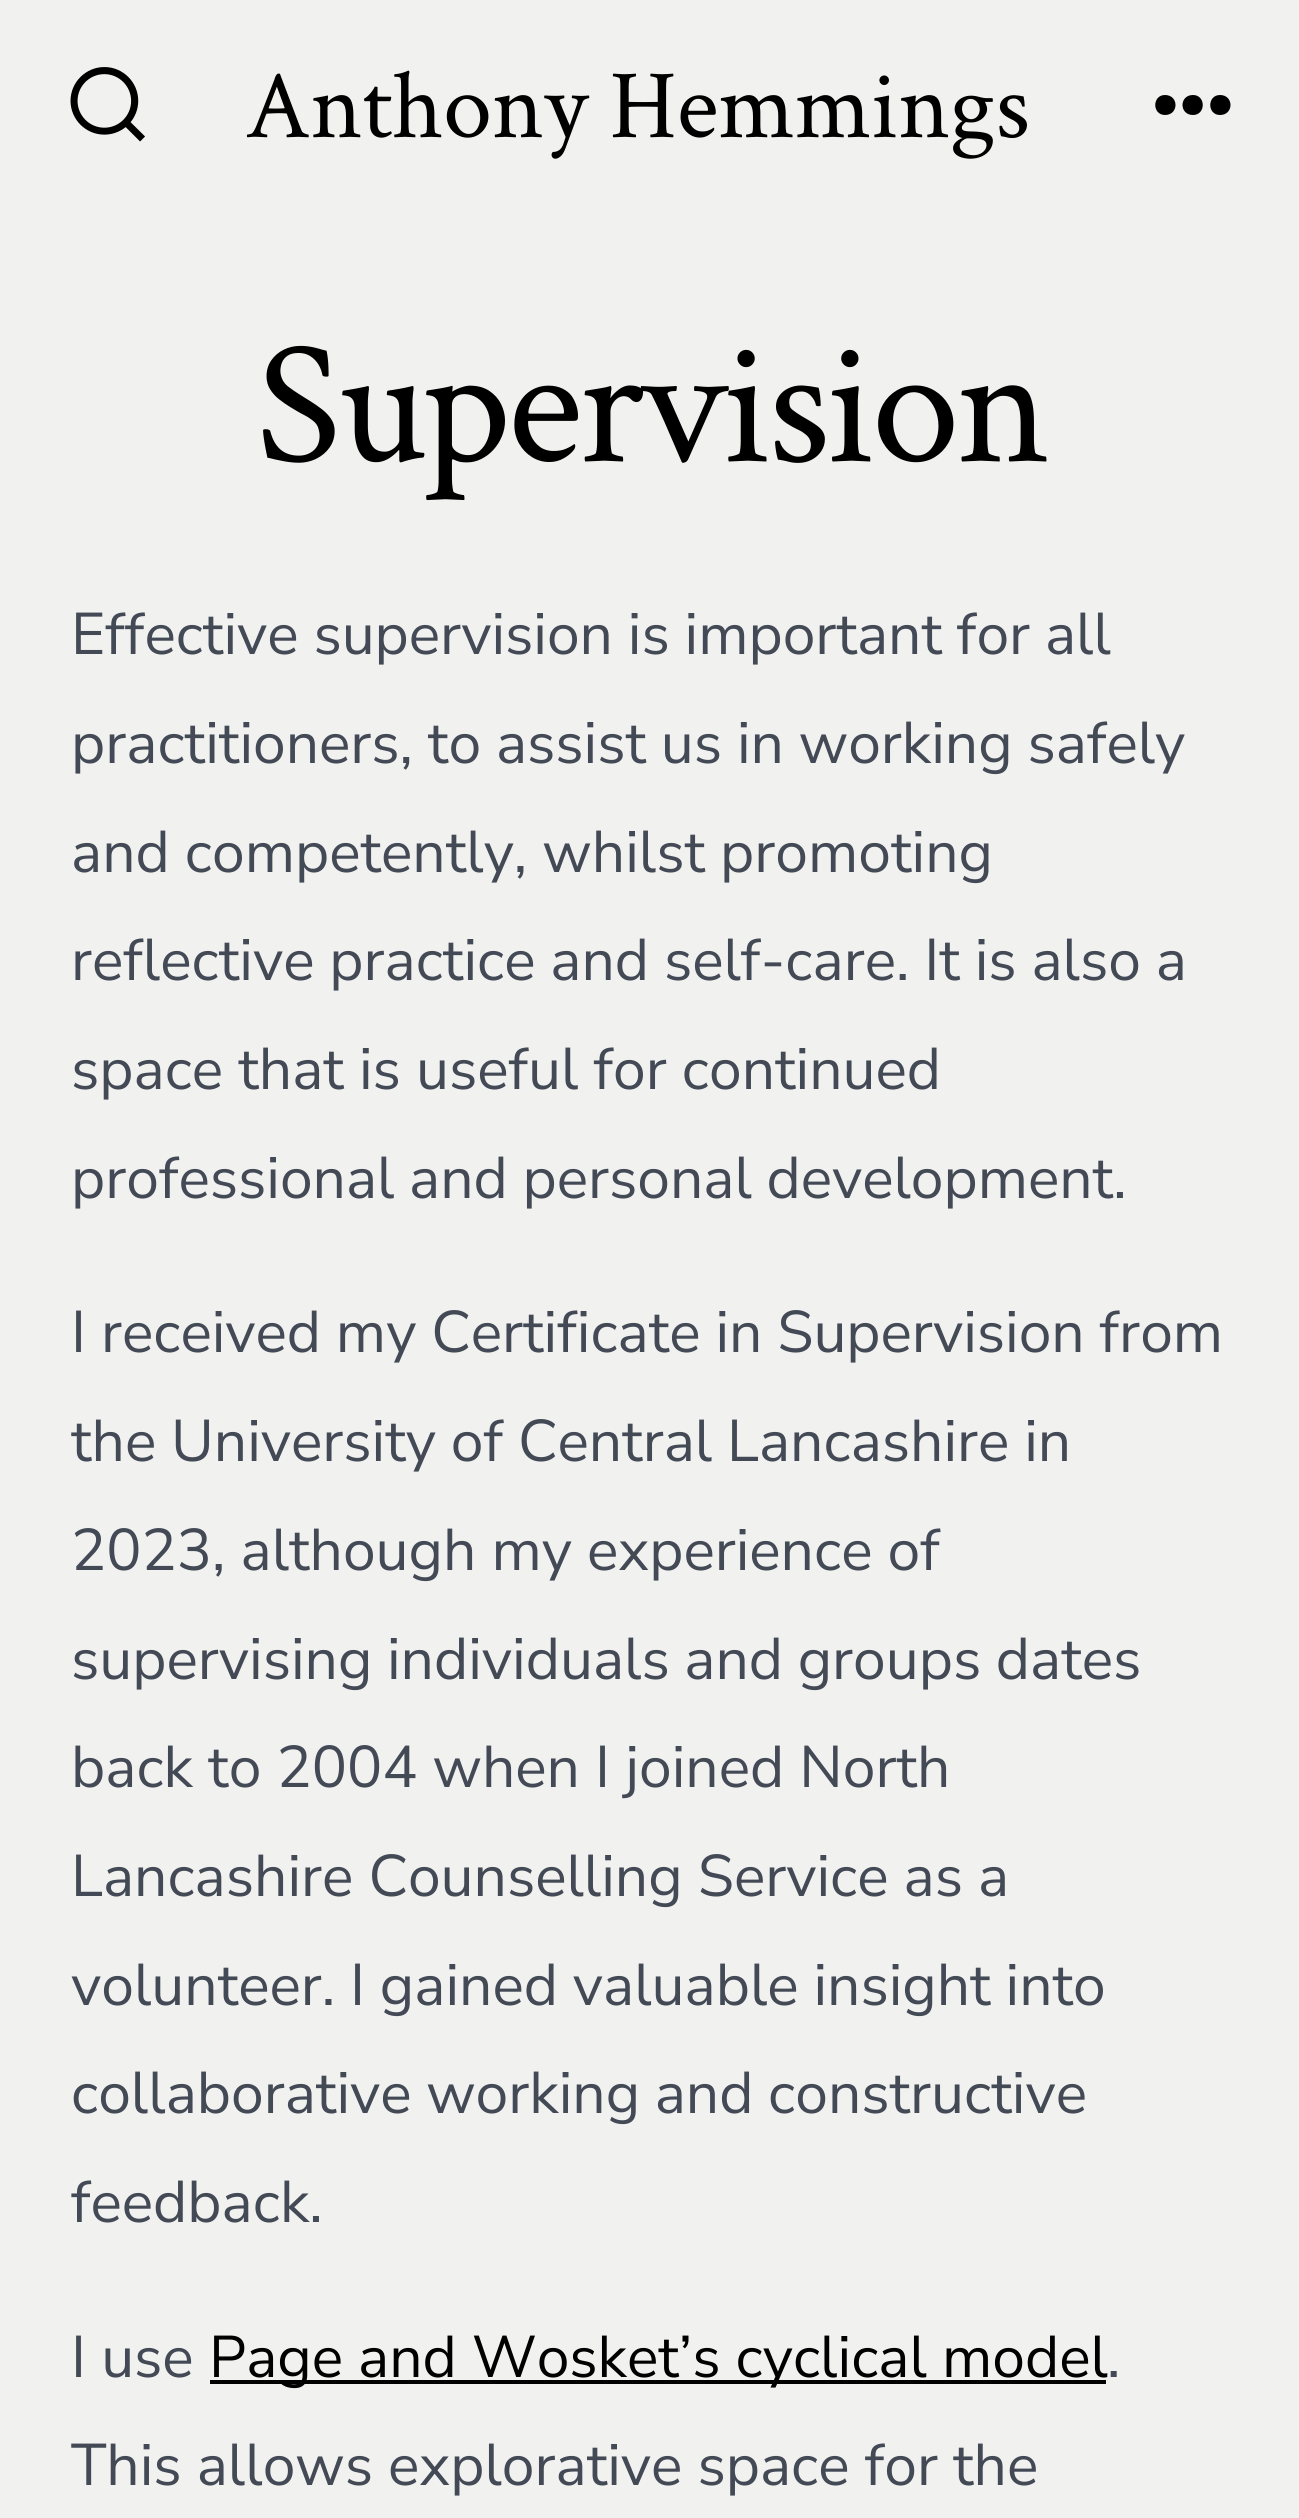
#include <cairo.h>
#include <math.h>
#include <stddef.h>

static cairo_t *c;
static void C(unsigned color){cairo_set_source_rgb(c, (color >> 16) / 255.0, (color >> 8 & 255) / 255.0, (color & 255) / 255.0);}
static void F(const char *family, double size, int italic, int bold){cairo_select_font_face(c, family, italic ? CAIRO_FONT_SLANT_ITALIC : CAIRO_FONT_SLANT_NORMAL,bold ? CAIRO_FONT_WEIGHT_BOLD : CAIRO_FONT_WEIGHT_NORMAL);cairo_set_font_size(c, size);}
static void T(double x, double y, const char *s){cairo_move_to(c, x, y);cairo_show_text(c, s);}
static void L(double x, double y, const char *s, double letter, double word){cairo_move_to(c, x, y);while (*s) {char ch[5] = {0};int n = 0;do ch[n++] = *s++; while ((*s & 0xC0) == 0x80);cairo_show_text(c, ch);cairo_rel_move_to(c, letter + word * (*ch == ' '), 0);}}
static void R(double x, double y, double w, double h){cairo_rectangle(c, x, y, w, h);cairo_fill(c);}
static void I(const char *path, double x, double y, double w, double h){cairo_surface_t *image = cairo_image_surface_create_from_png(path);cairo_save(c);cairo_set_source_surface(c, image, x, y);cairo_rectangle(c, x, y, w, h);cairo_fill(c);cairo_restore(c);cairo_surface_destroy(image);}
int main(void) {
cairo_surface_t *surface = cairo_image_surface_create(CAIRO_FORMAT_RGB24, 1299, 2518);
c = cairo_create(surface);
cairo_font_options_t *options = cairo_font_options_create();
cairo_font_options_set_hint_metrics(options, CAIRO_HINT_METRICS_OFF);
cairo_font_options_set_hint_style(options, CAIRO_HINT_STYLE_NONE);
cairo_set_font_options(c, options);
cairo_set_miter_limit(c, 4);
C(0xf1f1ef);
cairo_paint(c);
I("1.png",70,67,75,75);
F("Crimson Text",98,0,0);
C(0x000000);
T(245,137,"Anthony Hemmings");
cairo_new_path(c);
cairo_move_to(c,1165,115);
cairo_curve_to(c,1152,115,1152,95,1165,95);
cairo_curve_to(c,1179,95,1179,115,1165,115);
cairo_close_path(c);
cairo_move_to(c,1193,115);
cairo_curve_to(c,1179,115,1179,95,1193,95);
cairo_curve_to(c,1206,95,1206,115,1193,115);
cairo_close_path(c);
cairo_move_to(c,1220,115);
cairo_curve_to(c,1207,115,1207,95,1220,95);
cairo_curve_to(c,1234,95,1234,115,1220,115);
cairo_close_path(c);
cairo_fill(c);
F("Crimson Text",177,0,0);
L(256,461,"Supervision",-3.5,0);
F("Nunito Sans",58.75,0,0);
C(0x434a56);
L(71,654,"Effective supervision is important for all",0,-.25);
L(71,763,"practitioners, to assist us in working safely",0,-.25);
T(71,872,"and competently, whilst promoting");
L(71,980,"reflective practice and self-care. It is also a",0,-.25);
T(71,1089,"space that is useful for continued");
L(71,1198,"professional and personal development.",0,-.5);
L(71,1352,"I received my Certificate in Supervision from",0,-.25);
L(71,1461,"the University of Central Lancashire in",0,-.25);
T(71,1570,"2023, although my experience of");
L(71,1679,"supervising individuals and groups dates",0,-.5);
T(71,1787,"back to 2004 when I joined North");
T(71,1896,"Lancashire Counselling Service as a");
L(71,2005,"volunteer. I gained valuable insight into",0,-.25);
L(71,2113,"collaborative working and constructive",0,-.5);
T(71,2222,"feedback.");
T(71,2377,"I use");
C(0x000000);
R(210,2380,896,4);
T(209,2377,"Page and Wosket’s cyclical model");
C(0x434a56);
T(1107,2377,".");
T(71,2485,"This allows explorative space for the");
cairo_surface_write_to_png(surface, "o.png");
cairo_font_options_destroy(options);
cairo_destroy(c);
cairo_surface_destroy(surface);
return 0;
}
